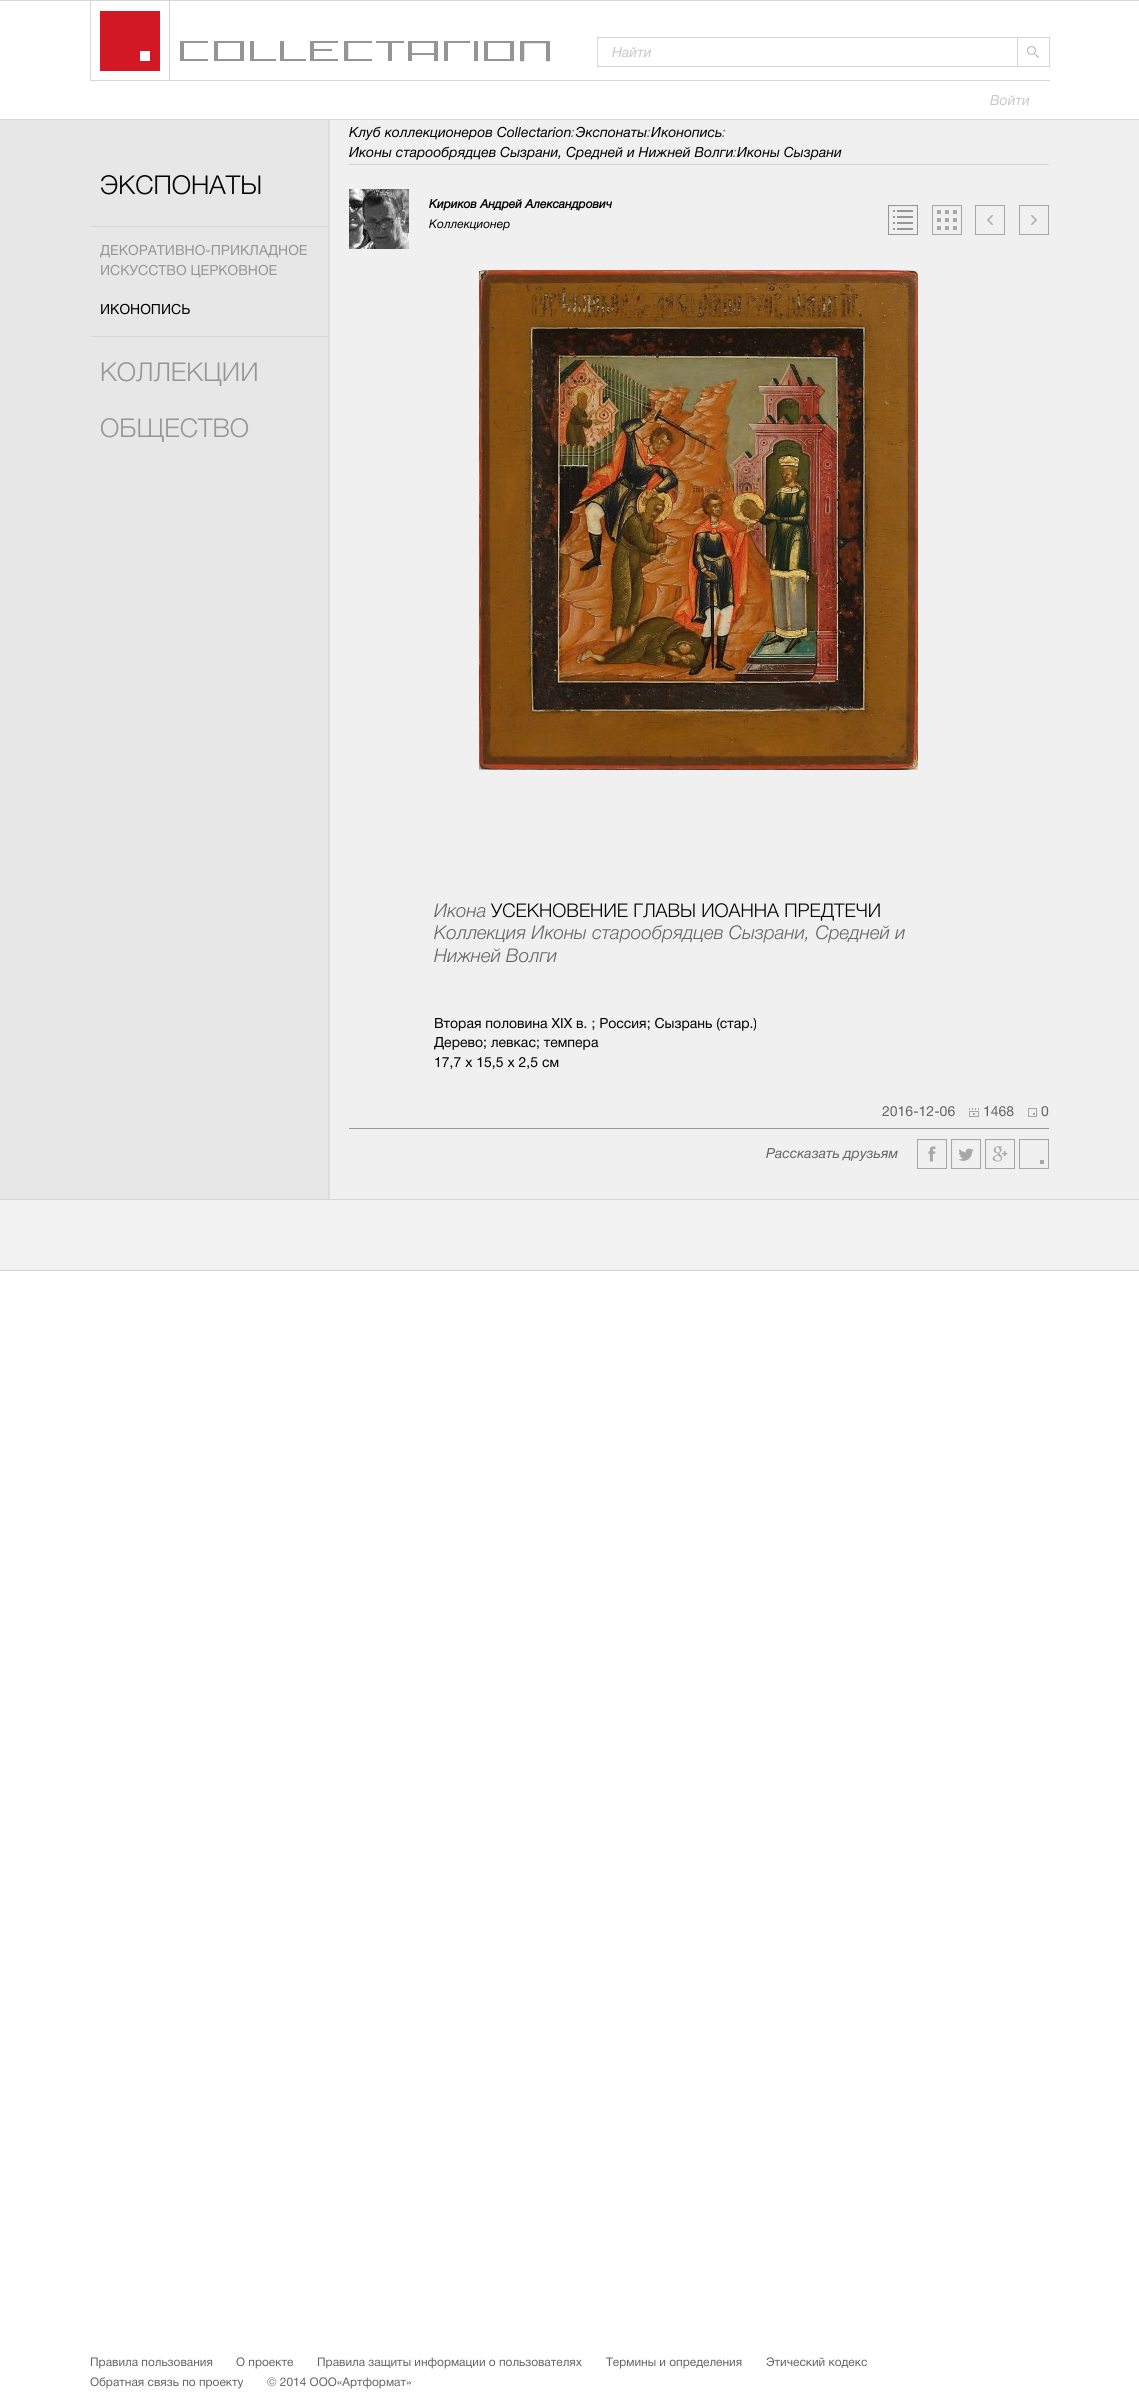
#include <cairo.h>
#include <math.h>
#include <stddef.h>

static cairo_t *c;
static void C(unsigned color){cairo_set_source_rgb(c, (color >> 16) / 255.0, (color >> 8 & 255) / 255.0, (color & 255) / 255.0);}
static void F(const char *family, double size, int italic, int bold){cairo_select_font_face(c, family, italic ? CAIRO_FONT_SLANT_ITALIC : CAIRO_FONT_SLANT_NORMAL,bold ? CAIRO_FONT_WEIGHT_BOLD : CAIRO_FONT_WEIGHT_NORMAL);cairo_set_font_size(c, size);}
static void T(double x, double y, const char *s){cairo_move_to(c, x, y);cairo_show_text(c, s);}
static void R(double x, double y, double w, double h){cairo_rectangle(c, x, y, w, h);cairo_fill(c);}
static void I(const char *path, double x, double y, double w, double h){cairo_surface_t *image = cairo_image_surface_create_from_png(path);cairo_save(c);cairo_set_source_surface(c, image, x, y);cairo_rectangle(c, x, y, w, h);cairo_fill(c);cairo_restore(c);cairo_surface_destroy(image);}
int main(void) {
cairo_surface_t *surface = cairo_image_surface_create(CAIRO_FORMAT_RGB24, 1139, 2403);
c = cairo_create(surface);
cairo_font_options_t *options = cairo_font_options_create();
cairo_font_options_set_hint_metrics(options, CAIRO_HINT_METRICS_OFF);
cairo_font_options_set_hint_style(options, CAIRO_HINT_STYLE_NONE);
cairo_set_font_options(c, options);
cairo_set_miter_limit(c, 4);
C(0xffffff);
cairo_paint(c);
C(0xd6d6d6);
R(0,0,1139,1);
R(0,119,1139,1);
I("1.png",90,1,460,79);
R(597,37,420,1);
R(597,66,420,1);
R(597,37,1,30);
F("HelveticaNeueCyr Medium",14,1,0);
C(0xc8c8c8);
T(612,57,"Найти");
I("2.png",1027,46,12,12);
cairo_rectangle(c,1017.5,37.5,32,29);
C(0xd6d6d6);
cairo_set_line_width(c,1);
cairo_stroke(c);
R(90,80,960,1);
C(0xc8c8c8);
T(990,105,"Войти");
C(0xe7e7e7);
R(0,120,328,1079);
I("3.png",328,120,811,1079);
C(0xd6d6d6);
R(0,1199,1139,1);
F("HelveticaNeueCyr Light",26,0,0);
C(0x000000);
T(100,194,"ЭКСПОНАТЫ");
C(0xd6d6d6);
R(90,226,239,1);
R(90,336,239,1);
F("HelveticaNeueCyr",14,0,0);
C(0x969696);
T(100,255,"ДЕКОРАТИВНО-ПРИКЛАДНОЕ");
T(100,275,"ИСКУССТВО ЦЕРКОВНОЕ");
C(0x000000);
T(100,314,"ИКОНОПИСЬ");
F("HelveticaNeueCyr Light",26,0,0);
C(0x969696);
T(100,381,"КОЛЛЕКЦИИ");
T(100,437,"ОБЩЕСТВО");
F("HelveticaNeueCyr Medium",14,1,0);
C(0x000000);
T(349,137,"Клуб коллекционеров Collectarion Экспонаты Иконопись");
C(0x646464);
T(571,137,":");
T(647,137,":");
T(722,137,":");
C(0x000000);
T(349,157,"Иконы старообрядцев Сызрани, Средней и Нижней Волги");
C(0x646464);
T(733,157,":");
C(0x000000);
T(737,157,"Иконы Сызрани");
C(0xd6d6d6);
R(349,164,700,1);
I("4.png",349,189,60,60);
F("HelveticaNeueCyr",12,1,1);
C(0x000000);
T(429,208,"Кириков Андрей Александрович");
F("HelveticaNeueCyr Medium",12,1,0);
T(429,228,"Коллекционер");
I("5.png",888,205,30,30);
I("6.png",932,205,30,30);
I("7.png",975,205,30,30);
I("8.png",1019,205,30,30);
I("9.png",479,270,439,500);
F("HelveticaNeueCyr Light",18.9,1,0);
C(0x646464);
T(434,917,"Икона");
F("HelveticaNeueCyr Light",18.9,0,0);
C(0x000000);
T(491,917,"УСЕКНОВЕНИЕ ГЛАВЫ ИОАННА ПРЕДТЕЧИ");
F("HelveticaNeueCyr Light",18.9,1,0);
C(0x646464);
T(434,939,"Коллекция Иконы старообрядцев Сызрани, Средней и");
T(434,962,"Нижней Волги");
F("HelveticaNeueCyr",14,0,0);
C(0x000000);
T(434,1028,"Вторая половина XIX в. ; Россия; Сызрань (стар.)");
T(434,1047,"Дерево; левкас; темпера");
T(434,1067,"17,7 x 15,5 x 2,5 см");
C(0x969696);
R(349,1128,700,1);
C(0x646464);
T(882,1116,"2016-12-06");
I("10.png",969,1108,10,9);
T(983,1116,"1468");
I("11.png",1028,1108,9,9);
T(1041,1116,"0");
F("HelveticaNeueCyr Medium",14,1,0);
T(766,1158,"Рассказать друзьям");
I("12.png",917,1139,30,30);
I("13.png",951,1139,30,30);
I("14.png",985,1139,30,30);
I("15.png",1019,1139,30,30);
C(0xf2f2f2);
R(0,1200,1139,70);
C(0xd6d6d6);
R(0,1270,1139,1);
F("HelveticaNeueCyr",11.9,0,0);
C(0x646464);
T(90,2366,"Правила пользования");
T(236,2366,"О проекте");
T(317,2366,"Правила защиты информации о пользователях");
T(606,2366,"Термины и определения");
T(766,2366,"Этический кодекс");
T(90,2386,"Обратная связь по проекту");
T(267,2386,"© 2014 ООО«Артформат»");
cairo_surface_write_to_png(surface, "o.png");
cairo_font_options_destroy(options);
cairo_destroy(c);
cairo_surface_destroy(surface);
return 0;
}
